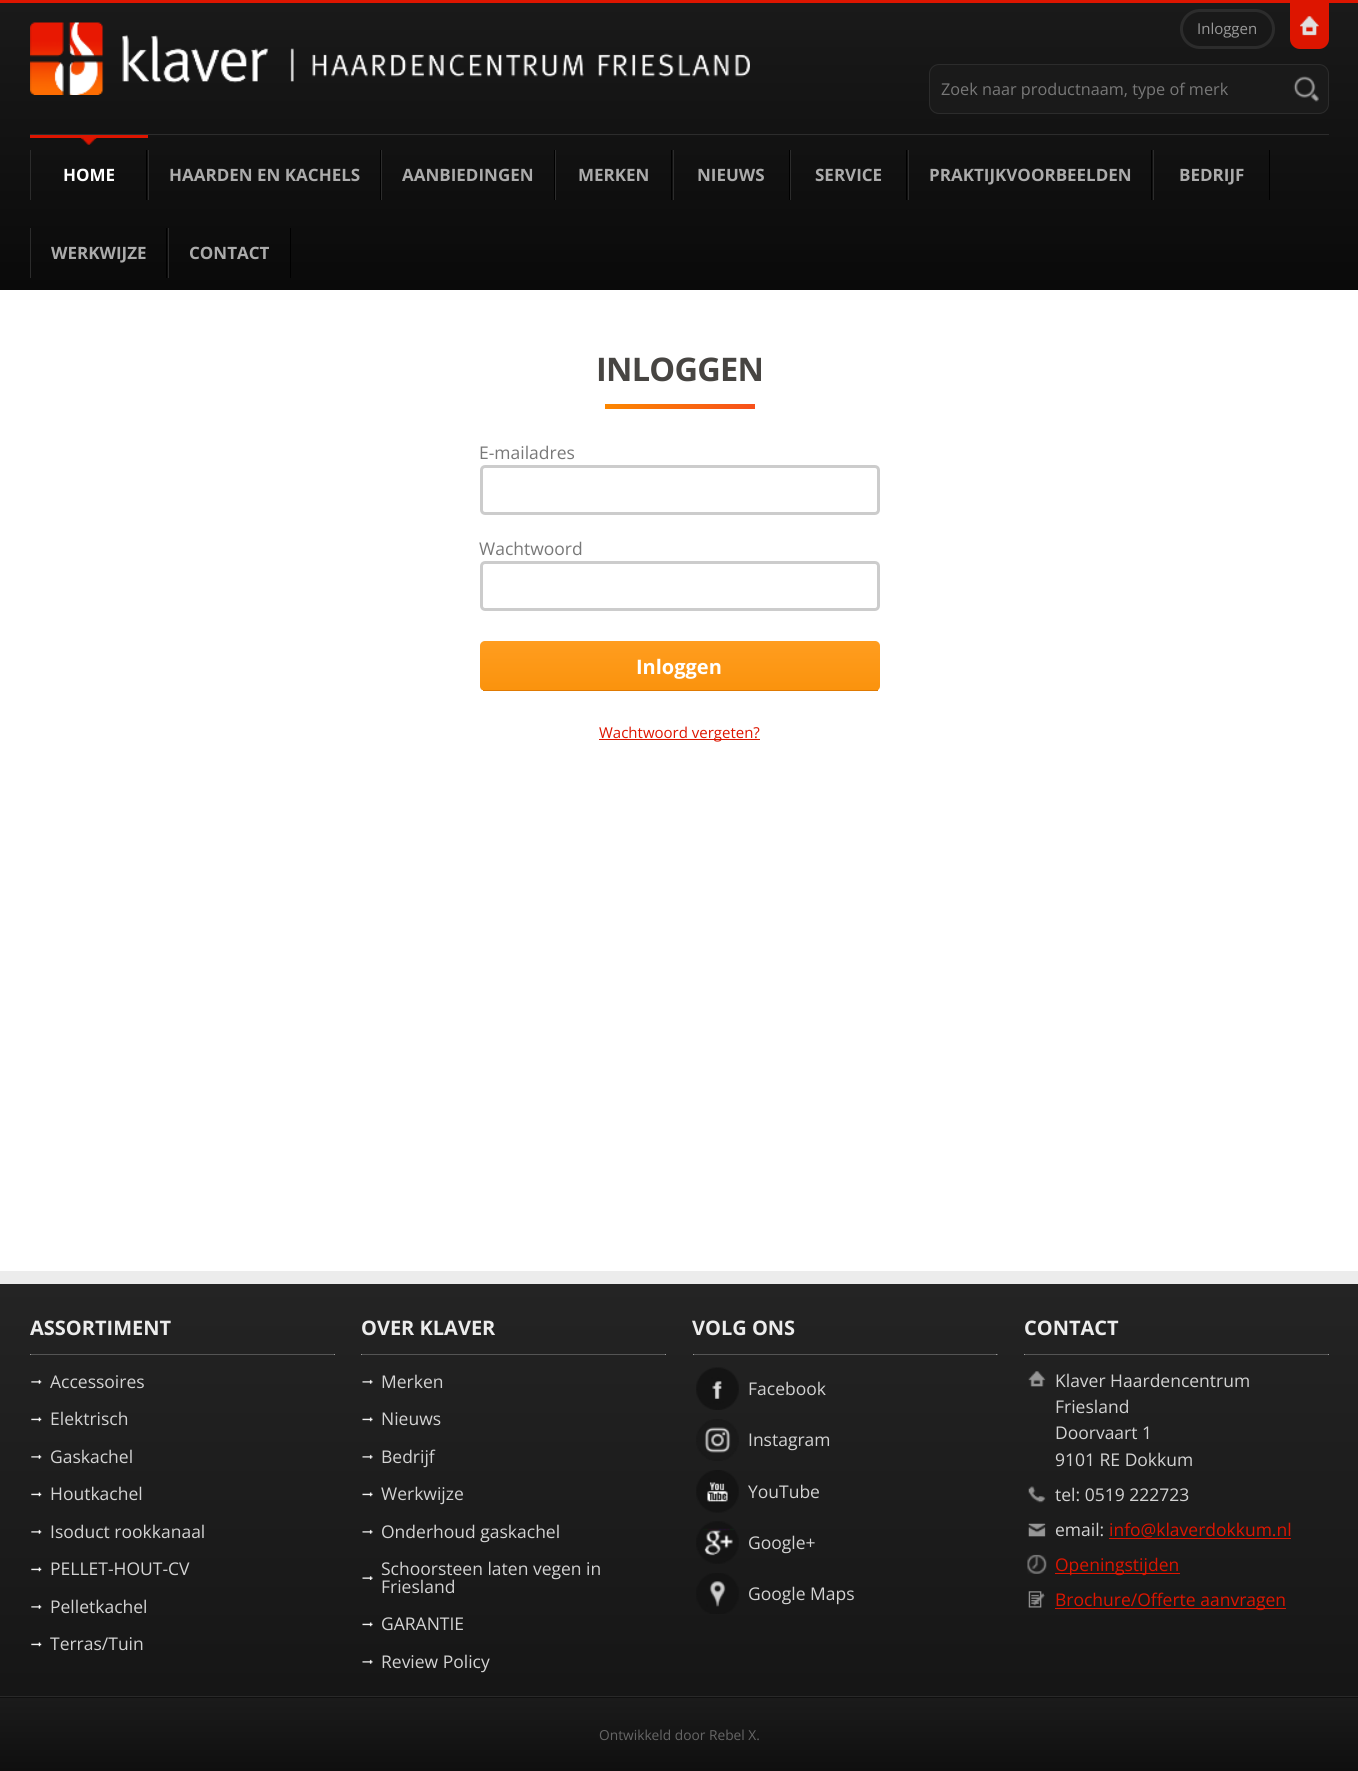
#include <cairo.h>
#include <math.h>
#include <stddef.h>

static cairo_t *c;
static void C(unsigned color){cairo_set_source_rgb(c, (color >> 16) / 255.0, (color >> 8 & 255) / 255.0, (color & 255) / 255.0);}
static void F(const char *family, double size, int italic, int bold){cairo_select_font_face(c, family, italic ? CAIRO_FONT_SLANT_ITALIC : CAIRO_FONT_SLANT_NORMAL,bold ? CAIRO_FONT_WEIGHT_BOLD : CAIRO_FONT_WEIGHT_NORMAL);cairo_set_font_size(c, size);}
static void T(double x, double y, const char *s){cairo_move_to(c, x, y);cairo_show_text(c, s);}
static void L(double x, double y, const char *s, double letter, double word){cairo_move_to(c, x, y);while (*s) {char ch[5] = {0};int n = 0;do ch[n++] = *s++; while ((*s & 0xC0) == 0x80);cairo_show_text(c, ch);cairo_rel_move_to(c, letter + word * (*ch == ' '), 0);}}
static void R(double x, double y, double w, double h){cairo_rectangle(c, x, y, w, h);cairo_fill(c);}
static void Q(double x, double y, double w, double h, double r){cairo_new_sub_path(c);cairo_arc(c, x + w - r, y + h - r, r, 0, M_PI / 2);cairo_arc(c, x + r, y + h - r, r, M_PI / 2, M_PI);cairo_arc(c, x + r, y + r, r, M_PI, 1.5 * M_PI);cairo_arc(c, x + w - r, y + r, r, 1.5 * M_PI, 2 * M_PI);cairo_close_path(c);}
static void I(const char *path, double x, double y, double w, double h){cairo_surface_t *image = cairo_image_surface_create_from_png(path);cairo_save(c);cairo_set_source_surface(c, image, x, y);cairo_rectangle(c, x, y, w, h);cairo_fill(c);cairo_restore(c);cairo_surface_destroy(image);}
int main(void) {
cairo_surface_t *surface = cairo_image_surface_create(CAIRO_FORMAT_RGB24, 1358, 1771);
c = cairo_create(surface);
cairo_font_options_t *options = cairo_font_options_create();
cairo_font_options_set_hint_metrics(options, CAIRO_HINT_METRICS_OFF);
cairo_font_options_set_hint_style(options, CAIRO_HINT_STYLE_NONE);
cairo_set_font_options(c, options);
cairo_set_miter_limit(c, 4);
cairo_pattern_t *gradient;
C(0xffffff);
cairo_paint(c);
gradient = cairo_pattern_create_linear(679,2.5,679,290);
cairo_pattern_add_color_stop_rgba(gradient,0,0.102,0.102,0.102,1);
cairo_pattern_add_color_stop_rgba(gradient,1,0.039,0.039,0.039,1);
cairo_set_source(c,gradient);
cairo_pattern_destroy(gradient);
R(0,3,1358,287);
C(0xdd1500);
R(0,0,1358,3);
I("1.png",30,22,239,73);
I("2.png",290,48,460,34);
Q(1181.5,10.5,92,37,18.5);
C(0x2c2c2c);
cairo_set_line_width(c,3);
cairo_stroke(c);
F("Open Sans",15,0,0);
C(0x999999);
T(1197,34,"Inloggen");
C(0xdd1500);
cairo_new_path(c);
cairo_move_to(c,1290,3);
cairo_line_to(c,1329,3);
cairo_line_to(c,1329,39);
cairo_curve_to(c,1329,44.5,1324.5,49,1319,49);
cairo_line_to(c,1300,49);
cairo_curve_to(c,1294.5,49,1290,44.5,1290,39);
cairo_close_path(c);
cairo_fill(c);
I("3.png",1300,16,19,20);
C(0x1a1a1a);
Q(929.5,64.5,399,49,9.5);
cairo_fill_preserve(c);
C(0x2c2c2c);
cairo_set_line_width(c,1);
cairo_stroke(c);
F("Open Sans",16.25,0,0);
C(0x787878);
T(941,95,"Zoek naar productnaam, type of merk");
I("4.png",1293,76,26,26);
C(0x2c2c2c);
R(30,134,1299,1);
I("5.png",81,138,16,7);
C(0xdd1500);
R(30,135,118,3);
C(0x000000);
R(146,150,1,50);
C(0x2c2c2c);
R(30,150,1,50);
F("Open Sans",17,0,1);
C(0xffffff);
T(63,181,"HOME");
C(0x000000);
R(380,150,1,50);
C(0x2c2c2c);
R(148,150,1,50);
C(0xababab);
T(169,181,"HAARDEN EN KACHELS");
C(0x000000);
R(554,150,1,50);
C(0x2c2c2c);
R(381,150,1,50);
C(0xababab);
T(402,181,"AANBIEDINGEN");
C(0x000000);
R(671,150,1,50);
C(0x2c2c2c);
R(555,150,1,50);
C(0xababab);
T(578,181,"MERKEN");
C(0x000000);
R(789,150,1,50);
C(0x2c2c2c);
R(673,150,1,50);
C(0xababab);
T(697,181,"NIEUWS");
C(0x000000);
R(906,150,1,50);
C(0x2c2c2c);
R(790,150,1,50);
C(0xababab);
T(815,181,"SERVICE");
C(0x000000);
R(1151,150,1,50);
C(0x2c2c2c);
R(908,150,1,50);
C(0xababab);
T(929,181,"PRAKTIJKVOORBEELDEN");
C(0x000000);
R(1269,150,1,50);
C(0x2c2c2c);
R(1153,150,1,50);
C(0xababab);
T(1179,181,"BEDRIJF");
C(0x000000);
R(166,228,1,50);
C(0x2c2c2c);
R(30,228,1,50);
C(0xababab);
T(51,259,"WERKWIJZE");
C(0x000000);
R(290,228,1,50);
C(0x2c2c2c);
R(168,228,1,50);
C(0xababab);
T(189,259,"CONTACT");
F("Open Sans",32.5,0,1);
C(0x474542);
L(596,381,"INLOGGEN",-.75,0);
gradient = cairo_pattern_create_linear(641,368,719,445);
cairo_pattern_add_color_stop_rgba(gradient,0,0.988,0.529,0,1);
cairo_pattern_add_color_stop_rgba(gradient,1,0.969,0.31,0.106,1);
cairo_set_source(c,gradient);
cairo_pattern_destroy(gradient);
R(605,404,150,5);
F("Open Sans",17.5,0,0);
C(0x787878);
T(479,459,"E-mailadres");
Q(481.5,466.5,397,47,3.5);
C(0xcccccc);
cairo_set_line_width(c,3);
cairo_stroke(c);
C(0x787878);
T(479,555,"Wachtwoord");
Q(481.5,562.5,397,47,3.5);
C(0xcccccc);
cairo_stroke(c);
C(0xefefef);
Q(480,641,400,50,5);
cairo_fill(c);
cairo_save(c);
Q(480,641,400,50,5);
cairo_clip(c);
gradient = cairo_pattern_create_linear(680,641,680,690);
cairo_pattern_add_color_stop_rgba(gradient,0,1,0.616,0.122,1);
cairo_pattern_add_color_stop_rgba(gradient,1,0.984,0.576,0.051,1);
cairo_set_source(c,gradient);
cairo_pattern_destroy(gradient);
cairo_new_path(c);
cairo_move_to(c,485,641);
cairo_line_to(c,875,641);
cairo_curve_to(c,878,641,880,643,880,646);
cairo_line_to(c,880,690);
cairo_line_to(c,480,690);
cairo_line_to(c,480,646);
cairo_curve_to(c,480,643,482,641,485,641);
cairo_close_path(c);
cairo_fill(c);
cairo_restore(c);
C(0xe07a02);
R(483,690,395,1);
F("Open Sans",20,0,1);
C(0xffffff);
T(636,674,"Inloggen");
C(0xdd1500);
R(599,739,161,1);
F("Open Sans",15,0,0);
T(599,738,"Wachtwoord vergeten?");
gradient = cairo_pattern_create_linear(679,1284,679,1771);
cairo_pattern_add_color_stop_rgba(gradient,0,0.141,0.141,0.141,1);
cairo_pattern_add_color_stop_rgba(gradient,1,0.075,0.075,0.075,1);
cairo_set_source(c,gradient);
cairo_pattern_destroy(gradient);
R(0,1284,1358,412);
C(0xececec);
R(0,1271,1358,13);
C(0x545454);
R(30,1354,305,1);
F("Open Sans",20,0,1);
C(0xececec);
T(30,1335,"ASSORTIMENT");
C(0x999999);
R(30,1354,1,1);
R(334,1354,1,1);
I("6.png",31,1379,11,5);
F("Open Sans",17.5,0,0);
C(0xd3d3d3);
T(50,1388,"Accessoires");
I("7.png",31,1417,11,5);
T(50,1425,"Elektrisch");
I("8.png",31,1454,11,5);
T(50,1463,"Gaskachel");
I("9.png",31,1492,11,5);
T(50,1500,"Houtkachel");
I("10.png",31,1529,11,5);
T(50,1538,"Isoduct rookkanaal");
I("11.png",31,1567,11,5);
T(50,1575,"PELLET-HOUT-CV");
I("12.png",31,1604,11,5);
T(50,1613,"Pelletkachel");
I("13.png",31,1642,11,5);
T(50,1650,"Terras/Tuin");
C(0x545454);
R(361,1354,305,1);
F("Open Sans",20,0,1);
C(0xececec);
T(361,1335,"OVER KLAVER");
C(0x999999);
R(361,1354,1,1);
R(665,1354,1,1);
I("14.png",362,1379,11,5);
F("Open Sans",17.5,0,0);
C(0xd3d3d3);
T(381,1388,"Merken");
I("15.png",362,1417,11,5);
T(381,1425,"Nieuws");
I("16.png",362,1454,11,5);
T(381,1463,"Bedrijf");
I("17.png",362,1492,11,5);
T(381,1500,"Werkwijze");
I("18.png",362,1529,11,5);
T(381,1538,"Onderhoud gaskachel");
I("19.png",362,1576,11,4);
T(381,1575,"Schoorsteen laten vegen in");
T(381,1593,"Friesland");
I("20.png",362,1622,11,5);
T(381,1630,"GARANTIE");
I("21.png",362,1659,11,5);
T(381,1668,"Review Policy");
C(0x545454);
R(693,1354,305,1);
F("Open Sans",20,0,1);
C(0xececec);
T(692,1335,"VOLG ONS");
C(0x999999);
R(693,1354,1,1);
R(996,1354,1,1);
I("22.png",696,1367,43,43);
F("Open Sans",17.5,0,0);
C(0xd3d3d3);
T(748,1395,"Facebook");
I("23.png",696,1419,43,42);
T(748,1446,"Instagram");
I("24.png",696,1470,43,43);
T(748,1498,"YouTube");
I("25.png",696,1521,43,43);
T(748,1549,"Google+");
I("26.png",696,1573,43,41);
T(748,1600,"Google Maps");
C(0x545454);
R(1024,1354,305,1);
F("Open Sans",20,0,1);
C(0xececec);
T(1024,1335,"CONTACT");
C(0x999999);
R(1024,1354,1,1);
R(1328,1354,1,1);
I("27.png",1028,1371,18,16);
F("Open Sans",17.5,0,0);
C(0xd3d3d3);
T(1055,1387,"Klaver Haardencentrum");
T(1055,1413,"Friesland");
T(1055,1439,"Doorvaart 1");
T(1055,1466,"9101 RE Dokkum");
I("28.png",1028,1486,18,17);
T(1055,1501,"tel: 0519 222723");
I("29.png",1028,1523,18,14);
T(1055,1536,"email:");
C(0xdd1500);
T(1109,1536,"info@klaverdokkum.nl");
R(1109,1538,182,1);
I("30.png",1027,1554,20,20);
R(1055,1573,125,1);
T(1055,1571,"Openingstijden");
I("31.png",1028,1591,17,17);
R(1055,1608,231,1);
T(1055,1606,"Brochure/Offerte aanvragen");
gradient = cairo_pattern_create_linear(679,1624,679,1698);
cairo_pattern_add_color_stop_rgba(gradient,0,0.106,0.106,0.106,1);
cairo_pattern_add_color_stop_rgba(gradient,1,0.059,0.059,0.059,1);
cairo_set_source(c,gradient);
cairo_pattern_destroy(gradient);
R(0,1697,1358,1);
gradient = cairo_pattern_create_linear(679,1698,679,1771);
cairo_pattern_add_color_stop_rgba(gradient,0,0.106,0.106,0.106,1);
cairo_pattern_add_color_stop_rgba(gradient,1,0.059,0.059,0.059,1);
cairo_set_source(c,gradient);
cairo_pattern_destroy(gradient);
R(0,1698,1358,73);
C(0x292929);
R(0,1696,1358,1);
F("Open Sans",13.75,0,0);
C(0x666666);
T(599,1740,"Ontwikkeld door Rebel X.");
cairo_surface_write_to_png(surface, "o.png");
cairo_font_options_destroy(options);
cairo_destroy(c);
cairo_surface_destroy(surface);
return 0;
}
